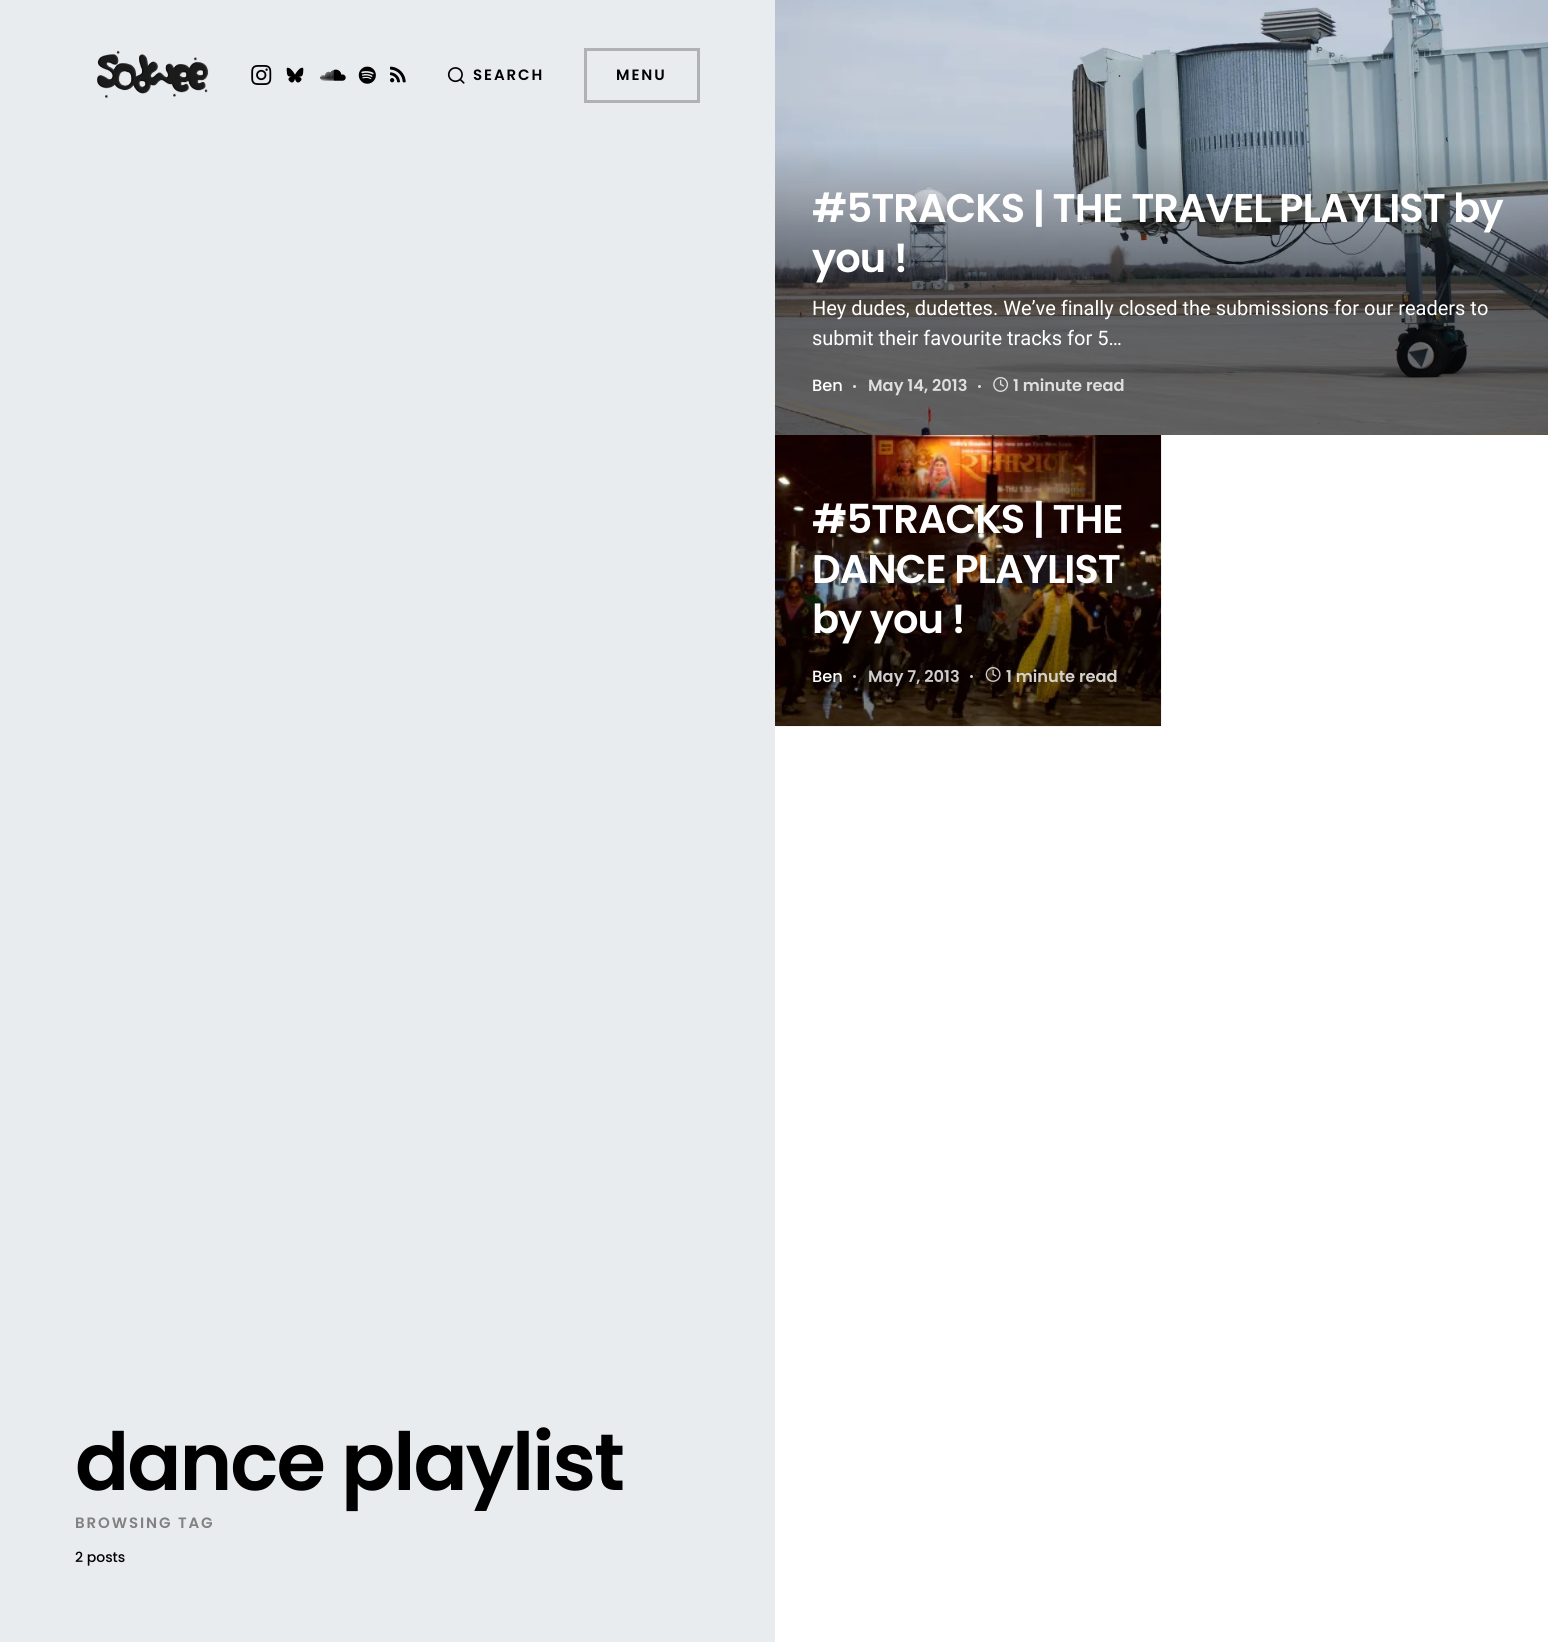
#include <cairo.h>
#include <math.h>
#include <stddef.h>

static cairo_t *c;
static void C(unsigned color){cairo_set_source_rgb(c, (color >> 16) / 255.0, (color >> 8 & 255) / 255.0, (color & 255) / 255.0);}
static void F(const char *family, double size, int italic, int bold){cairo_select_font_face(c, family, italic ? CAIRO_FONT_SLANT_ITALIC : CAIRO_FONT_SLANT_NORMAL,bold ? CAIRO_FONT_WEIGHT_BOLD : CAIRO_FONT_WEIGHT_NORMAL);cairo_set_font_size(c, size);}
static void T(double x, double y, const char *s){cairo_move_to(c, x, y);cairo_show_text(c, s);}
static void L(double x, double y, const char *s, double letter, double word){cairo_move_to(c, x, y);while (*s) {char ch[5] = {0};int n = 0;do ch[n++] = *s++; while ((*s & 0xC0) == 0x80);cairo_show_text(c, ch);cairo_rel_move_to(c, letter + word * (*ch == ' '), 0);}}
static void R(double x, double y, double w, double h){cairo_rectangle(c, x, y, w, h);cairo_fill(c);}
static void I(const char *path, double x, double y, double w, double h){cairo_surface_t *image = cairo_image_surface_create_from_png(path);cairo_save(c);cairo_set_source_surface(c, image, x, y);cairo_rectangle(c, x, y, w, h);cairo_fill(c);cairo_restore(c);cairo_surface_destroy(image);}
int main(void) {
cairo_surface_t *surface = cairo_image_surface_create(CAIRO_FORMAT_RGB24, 1548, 1642);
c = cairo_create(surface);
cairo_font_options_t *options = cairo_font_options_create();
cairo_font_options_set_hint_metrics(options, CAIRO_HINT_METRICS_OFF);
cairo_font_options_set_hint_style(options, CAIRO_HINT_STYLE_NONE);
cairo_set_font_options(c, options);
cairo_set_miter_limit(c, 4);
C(0xffffff);
cairo_paint(c);
C(0xe9ecef);
R(0,0,775,1642);
I("1.png",97,50,112,48);
I("2.png",251,65,21,20);
I("3.png",286,67,18,16);
I("4.png",320,69,26,12);
I("5.png",358,66,18,18);
I("6.png",390,66,16,17);
I("7.png",447,67,18,17);
F("Poppins SemiBold",15,0,0);
C(0x000000);
L(473,80,"SEARCH",1.9,0);
cairo_rectangle(c,585.5,49.5,113,52);
C(0xafb1b3);
cairo_set_line_width(c,3);
cairo_stroke(c);
C(0x000000);
L(616,80,"MENU",1.9,0);
F("Poppins SemiBold",80,0,0);
L(75,1490,"dance playlist",-2,0);
F("Poppins SemiBold",15,0,0);
C(0x818181);
L(75,1528,"BROWSING TAG",1.9,0);
F("Poppins Medium",14,0,0);
C(0x000000);
T(75,1562,"2 posts");
I("8.png",775,0,773,435);
F("Poppins SemiBold",40,0,0);
C(0xffffff);
L(812,222,"#5TRACKS | THE TRAVEL PLAYLIST by",-1,0);
L(812,272,"you !",-1,0);
F("Roboto",20,0,0);
T(812,315,"Hey dudes, dudettes. We’ve finally closed the submissions for our readers to");
T(812,345,"submit their favourite tracks for 5…");
F("Poppins Medium",16.25,0,0);
T(812,391,"Ben");
C(0xdfdfdf);
cairo_new_path(c);
cairo_arc(c,854.5,386.5,1.5,0,2 * M_PI);
cairo_fill(c);
F("Poppins SemiBold",16.25,0,0);
T(868,391,"May 14, 2013");
cairo_new_path(c);
cairo_arc(c,979.5,386.5,1.5,0,2 * M_PI);
cairo_fill(c);
I("9.png",993,377,16,15);
T(1013,391,"1 minute read");
I("10.png",775,435,387,292);
F("Poppins SemiBold",40,0,0);
C(0xffffff);
L(812,533,"#5TRACKS | THE",-1,0);
L(812,583,"DANCE PLAYLIST",-1,0);
L(812,633,"by you !",-1,0);
F("Poppins Medium",16.25,0,0);
T(812,682,"Ben");
cairo_set_source_rgba(c,1,1,1,0.8);
cairo_new_path(c);
cairo_arc(c,854.5,676.5,1.5,0,2 * M_PI);
cairo_fill(c);
F("Poppins SemiBold",16.25,0,0);
C(0xcfcdcd);
T(868,682,"May 7, 2013");
cairo_set_source_rgba(c,1,1,1,0.8);
cairo_new_path(c);
cairo_arc(c,971.5,676.5,1.5,0,2 * M_PI);
cairo_fill(c);
I("11.png",985,667,16,15);
C(0xd5d2cd);
T(1006,682,"1 minute read");
cairo_surface_write_to_png(surface, "o.png");
cairo_font_options_destroy(options);
cairo_destroy(c);
cairo_surface_destroy(surface);
return 0;
}
